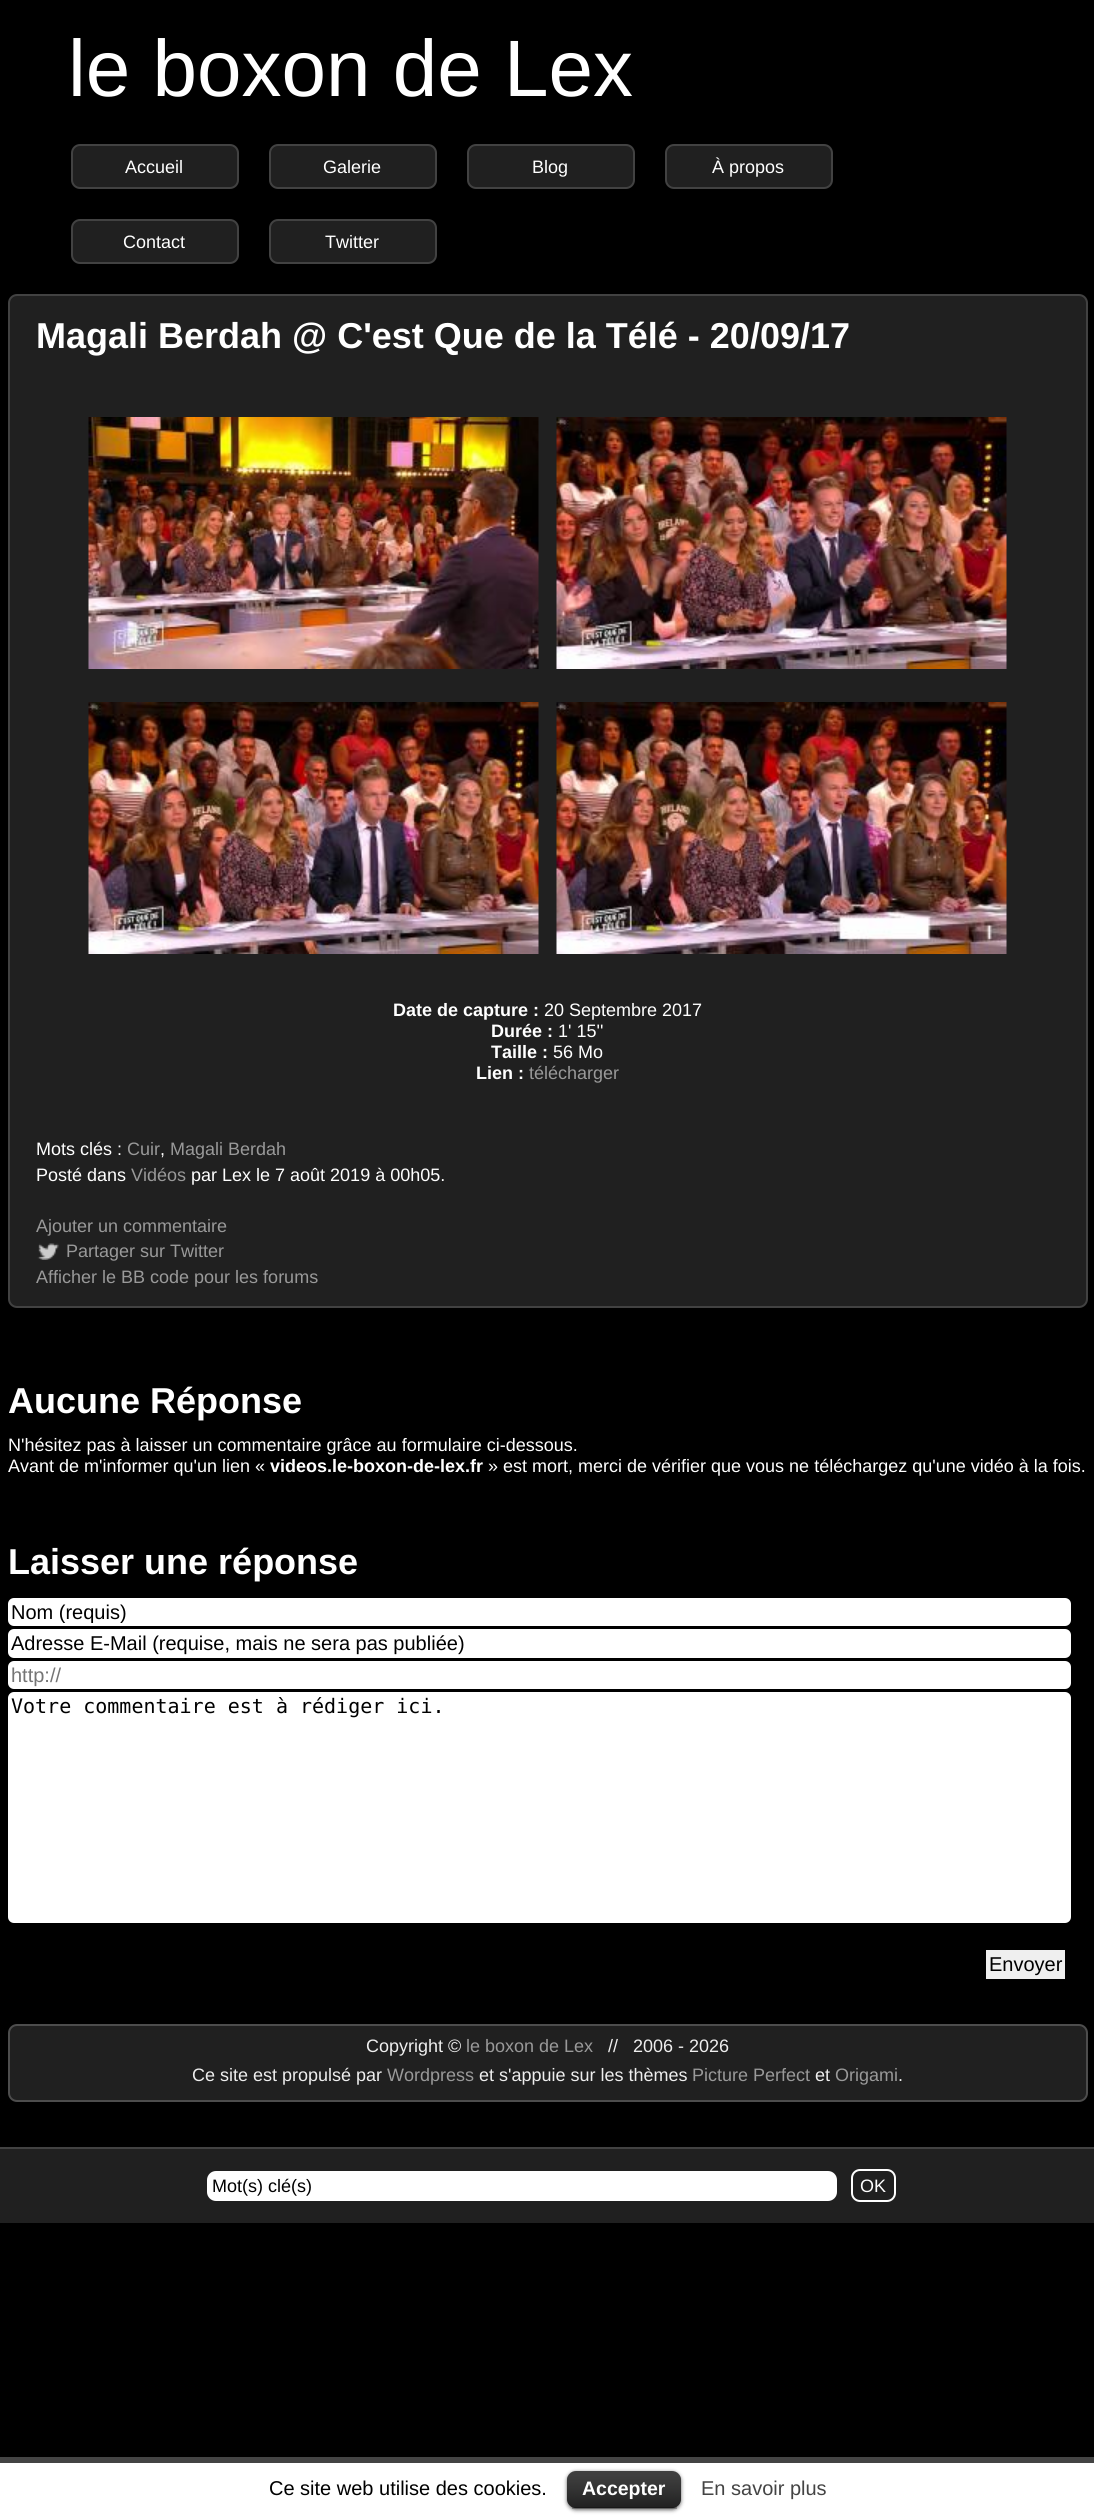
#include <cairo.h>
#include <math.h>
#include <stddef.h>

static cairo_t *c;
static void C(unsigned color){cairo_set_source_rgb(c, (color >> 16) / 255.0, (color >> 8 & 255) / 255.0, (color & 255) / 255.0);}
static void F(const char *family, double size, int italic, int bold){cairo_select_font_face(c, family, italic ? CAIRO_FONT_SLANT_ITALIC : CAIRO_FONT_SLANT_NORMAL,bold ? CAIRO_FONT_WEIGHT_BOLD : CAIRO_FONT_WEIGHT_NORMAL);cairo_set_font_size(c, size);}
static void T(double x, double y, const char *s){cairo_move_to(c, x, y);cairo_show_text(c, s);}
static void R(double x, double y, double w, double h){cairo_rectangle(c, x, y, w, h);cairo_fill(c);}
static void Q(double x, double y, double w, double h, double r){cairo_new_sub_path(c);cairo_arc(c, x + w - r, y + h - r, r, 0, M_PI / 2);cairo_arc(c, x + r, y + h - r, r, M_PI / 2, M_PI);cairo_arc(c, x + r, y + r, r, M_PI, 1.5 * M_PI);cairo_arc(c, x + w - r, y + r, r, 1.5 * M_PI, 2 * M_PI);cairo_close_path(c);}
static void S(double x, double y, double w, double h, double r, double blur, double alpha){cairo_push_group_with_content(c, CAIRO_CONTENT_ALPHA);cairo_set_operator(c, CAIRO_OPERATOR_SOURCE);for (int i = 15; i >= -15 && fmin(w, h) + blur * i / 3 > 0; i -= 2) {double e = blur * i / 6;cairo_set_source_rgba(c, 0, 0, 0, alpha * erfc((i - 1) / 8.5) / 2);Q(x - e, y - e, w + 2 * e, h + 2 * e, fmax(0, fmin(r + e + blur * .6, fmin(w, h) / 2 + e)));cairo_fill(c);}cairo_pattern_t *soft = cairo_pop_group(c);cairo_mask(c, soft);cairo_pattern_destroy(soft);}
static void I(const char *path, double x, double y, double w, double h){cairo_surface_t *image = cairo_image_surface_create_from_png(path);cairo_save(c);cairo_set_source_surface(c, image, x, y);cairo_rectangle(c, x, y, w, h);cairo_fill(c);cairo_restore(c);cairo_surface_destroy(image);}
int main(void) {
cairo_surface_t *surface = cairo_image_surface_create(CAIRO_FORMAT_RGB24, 1094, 2515);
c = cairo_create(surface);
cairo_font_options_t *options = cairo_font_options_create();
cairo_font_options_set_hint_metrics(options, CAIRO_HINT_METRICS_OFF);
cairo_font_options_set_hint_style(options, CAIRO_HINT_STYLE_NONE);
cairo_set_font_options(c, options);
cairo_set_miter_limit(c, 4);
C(0x000000);
cairo_paint(c);
F("Liberation Sans",80,0,0);
C(0xffffff);
T(68,96,"le boxon de Lex");
C(0x202020);
Q(72,145,166,43,8);
cairo_fill_preserve(c);
C(0x424242);
cairo_stroke(c);
F("Liberation Sans",18,0,0);
C(0xffffff);
T(125,173,"Accueil");
C(0x202020);
Q(270,145,166,43,8);
cairo_fill_preserve(c);
C(0x424242);
cairo_stroke(c);
C(0xffffff);
T(323,173,"Galerie");
C(0x202020);
Q(468,145,166,43,8);
cairo_fill_preserve(c);
C(0x424242);
cairo_stroke(c);
C(0xffffff);
T(532,173,"Blog");
C(0x202020);
Q(666,145,166,43,8);
cairo_fill_preserve(c);
C(0x424242);
cairo_stroke(c);
C(0xffffff);
T(712,173,"À propos");
C(0x202020);
Q(72,220,166,43,8);
cairo_fill_preserve(c);
C(0x424242);
cairo_stroke(c);
C(0xffffff);
T(123,248,"Contact");
C(0x202020);
Q(270,220,166,43,8);
cairo_fill_preserve(c);
C(0x424242);
cairo_stroke(c);
C(0xffffff);
T(325,248,"Twitter");
C(0x202020);
Q(9,295,1078,1012,8);
cairo_fill_preserve(c);
C(0x424242);
cairo_stroke(c);
F("Liberation Sans",36,0,1);
C(0xffffff);
T(36,348,"Magali Berdah @ C'est Que de la Télé - 20/09/17");
I("1.png",88,417,451,252);
I("2.png",556,417,451,252);
I("3.png",88,702,451,252);
I("4.png",556,702,451,252);
F("Liberation Sans",18,0,1);
T(393,1016,"Date de capture :");
F("Liberation Sans",18,0,0);
T(544,1016,"20 Septembre 2017");
F("Liberation Sans",18,0,1);
T(491,1037,"Durée :");
F("Liberation Sans",18,0,0);
T(558,1037,"1' 15''");
F("Liberation Sans",18,0,1);
T(491,1058,"Taille :");
F("Liberation Sans",18,0,0);
T(553,1058,"56 Mo");
F("Liberation Sans",18,0,1);
T(476,1079,"Lien :");
F("Liberation Sans",18,0,0);
C(0x999999);
T(529,1079,"télécharger");
C(0xffffff);
T(36,1155,"Mots clés :");
C(0x999999);
T(127,1155,"Cuir");
C(0xffffff);
T(160,1155,",");
C(0x999999);
T(170,1155,"Magali Berdah");
C(0xffffff);
T(36,1181,"Posté dans");
C(0x999999);
T(131,1181,"Vidéos");
C(0xffffff);
T(191,1181,"par Lex le 7 août 2019 à 00h05.");
C(0x999999);
T(36,1232,"Ajouter un commentaire");
I("5.png",37,1243,22,17);
T(66,1257,"Partager sur Twitter");
T(36,1283,"Afficher le BB code pour les forums");
F("Liberation Sans",36,0,1);
C(0xffffff);
T(8,1413,"Aucune Réponse");
F("Liberation Sans",18,0,0);
T(8,1451,"N'hésitez pas à laisser un commentaire grâce au formulaire ci-dessous.");
T(8,1472,"Avant de m'informer qu'un lien «");
F("Liberation Sans",18,0,1);
T(270,1472,"videos.le-boxon-de-lex.fr");
F("Liberation Sans",18,0,0);
T(488,1472,"» est mort, merci de vérifier que vous ne téléchargez qu'une vidéo à la fois.");
F("Liberation Sans",36,0,1);
T(8,1574,"Laisser une réponse");
Q(8,1598,1063,28,6);
cairo_fill(c);
cairo_save(c);
cairo_rectangle(c,11,1601,1057,22);
cairo_clip(c);
F("Liberation Sans",20,0,0);
C(0x000000);
T(11,1619,"Nom (requis)");
cairo_restore(c);
Q(8,1629,1063,29,6);
cairo_fill(c);
F("Liberation Sans",20,0,0);
C(0x000000);
T(11,1650,"Adresse E-Mail (requise, mais ne sera pas publiée)");
C(0xffffff);
Q(8,1661,1063,28,6);
cairo_fill(c);
C(0x757575);
T(11,1682,"http://");
C(0xffffff);
Q(8,1692,1063,231,6);
cairo_fill(c);
F("DejaVu Sans Mono",20,0,0);
C(0x000000);
T(11,1713,"Votre commentaire est à rédiger ici.");
C(0xefefef);
R(986,1950,79,29);
F("Liberation Sans",20,0,0);
C(0x000000);
T(989,1971,"Envoyer");
C(0x202020);
Q(9,2025,1078,76,8);
cairo_fill_preserve(c);
C(0x4d4d4d);
cairo_stroke(c);
F("Liberation Sans",18,0,0);
C(0xeeeeee);
T(366,2052,"Copyright ©");
C(0x999999);
T(466,2052,"le boxon de Lex");
C(0xeeeeee);
T(608,2052,"//   2006 - 2026");
T(192,2081,"Ce site est propulsé par");
C(0x999999);
T(387,2081,"Wordpress");
C(0xeeeeee);
T(479,2081,"et s'appuie sur les thèmes");
C(0x999999);
T(692,2081,"Picture Perfect");
C(0xeeeeee);
T(815,2081,"et");
C(0x999999);
T(835,2081,"Origami");
C(0xeeeeee);
T(898,2081,".");
C(0x202020);
R(0,2149,1094,74);
C(0x424242);
R(0,2147,1094,2);
C(0xffffff);
Q(207,2171,630,30,9);
cairo_fill(c);
C(0x000000);
T(212,2192,"Mot(s) clé(s)");
Q(852,2170,43,31,8);
C(0xffffff);
cairo_stroke(c);
T(860,2192,"OK");
R(0,2463,1094,52);
C(0x444444);
R(0,2457,1094,6);
F("Liberation Sans",20,0,0);
C(0x000000);
T(269,2495,"Ce site web utilise des cookies.");
C(0x000000);
S(567,2472,114,38,9,2,.6);
C(0x000000);
Q(567,2471,114,37,9);
cairo_fill(c);
I("6.png",567,2471,114,37);
cairo_set_source_rgba(c,0,0,0,0.25);
R(572,2507,105,2);
F("Liberation Sans",19.5,0,1);
C(0xffffff);
T(582,2495,"Accepter");
F("Liberation Sans",20,0,0);
C(0x444444);
T(701,2495,"En savoir plus");
cairo_surface_write_to_png(surface, "o.png");
cairo_font_options_destroy(options);
cairo_destroy(c);
cairo_surface_destroy(surface);
return 0;
}
